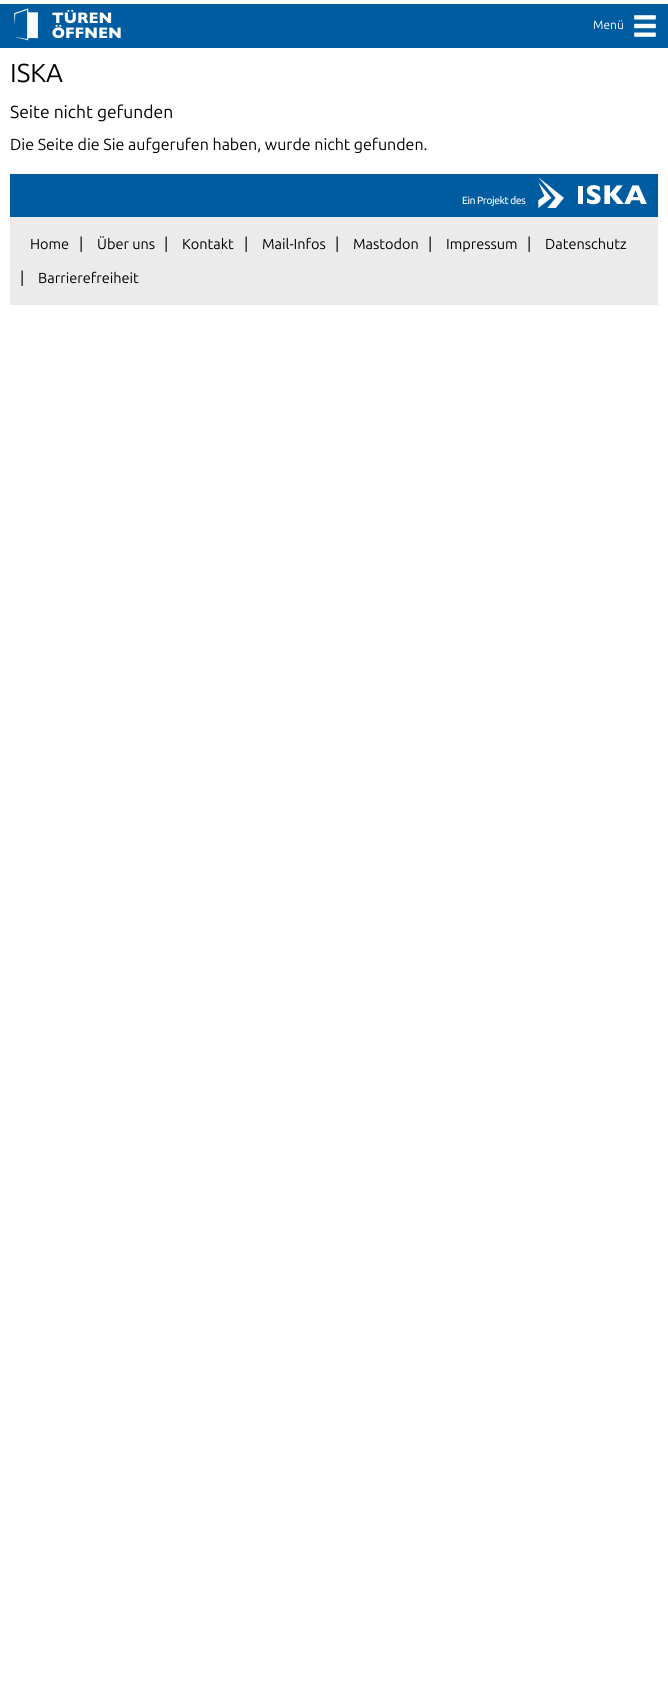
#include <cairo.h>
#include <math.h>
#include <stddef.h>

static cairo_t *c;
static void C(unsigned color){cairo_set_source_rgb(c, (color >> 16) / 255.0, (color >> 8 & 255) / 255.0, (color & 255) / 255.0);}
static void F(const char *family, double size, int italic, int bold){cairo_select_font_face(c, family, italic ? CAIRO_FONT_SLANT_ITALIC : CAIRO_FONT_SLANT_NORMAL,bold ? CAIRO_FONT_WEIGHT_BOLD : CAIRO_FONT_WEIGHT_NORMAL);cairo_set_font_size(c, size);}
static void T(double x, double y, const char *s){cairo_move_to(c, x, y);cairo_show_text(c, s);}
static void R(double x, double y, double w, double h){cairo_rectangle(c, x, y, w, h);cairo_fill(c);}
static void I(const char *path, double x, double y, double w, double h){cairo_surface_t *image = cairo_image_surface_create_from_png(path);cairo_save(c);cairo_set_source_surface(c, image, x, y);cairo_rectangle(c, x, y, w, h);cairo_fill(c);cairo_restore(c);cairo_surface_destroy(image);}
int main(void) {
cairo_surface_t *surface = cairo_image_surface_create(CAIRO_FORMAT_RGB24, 668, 1692);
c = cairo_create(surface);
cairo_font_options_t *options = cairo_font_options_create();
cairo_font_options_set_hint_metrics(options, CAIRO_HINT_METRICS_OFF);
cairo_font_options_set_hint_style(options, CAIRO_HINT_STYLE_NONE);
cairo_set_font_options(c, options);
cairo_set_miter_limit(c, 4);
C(0xffffff);
cairo_paint(c);
C(0x005ca1);
R(0,4,668,44);
I("1.png",14,8,107,33);
F("Ubuntu",12,0,0);
C(0xffffff);
T(593,29,"Menü");
I("2.png",634,15,22,22);
F("Ubuntu",26,0,0);
C(0x000000);
T(10,82,"ISKA");
F("Ubuntu",17.5,0,0);
T(10,118,"Seite nicht gefunden");
F("Ubuntu",16,0,0);
T(10,150,"Die Seite die Sie aufgerufen haben, wurde nicht gefunden.");
C(0x005ca1);
R(10,174,648,43);
I("3.png",462,177,185,31);
C(0xebebeb);
R(10,217,648,88);
F("Ubuntu",14.5,0,0);
C(0x000000);
T(30,249,"Home");
F("Ubuntu",16,0,0);
T(79,249,"|");
F("Ubuntu",14.5,0,0);
T(97,249,"Über uns");
F("Ubuntu",16,0,0);
T(164,249,"|");
F("Ubuntu",14.5,0,0);
T(182,249,"Kontakt");
F("Ubuntu",16,0,0);
T(244,249,"|");
F("Ubuntu",14.5,0,0);
T(262,249,"Mail-Infos");
F("Ubuntu",16,0,0);
T(335,249,"|");
F("Ubuntu",14.5,0,0);
T(353,249,"Mastodon");
F("Ubuntu",16,0,0);
T(428,249,"|");
F("Ubuntu",14.5,0,0);
T(446,249,"Impressum");
F("Ubuntu",16,0,0);
T(527,249,"|");
F("Ubuntu",14.5,0,0);
T(545,249,"Datenschutz");
F("Ubuntu",16,0,0);
T(20,283,"|");
F("Ubuntu",14.5,0,0);
T(38,283,"Barrierefreiheit");
cairo_surface_write_to_png(surface, "o.png");
cairo_font_options_destroy(options);
cairo_destroy(c);
cairo_surface_destroy(surface);
return 0;
}
